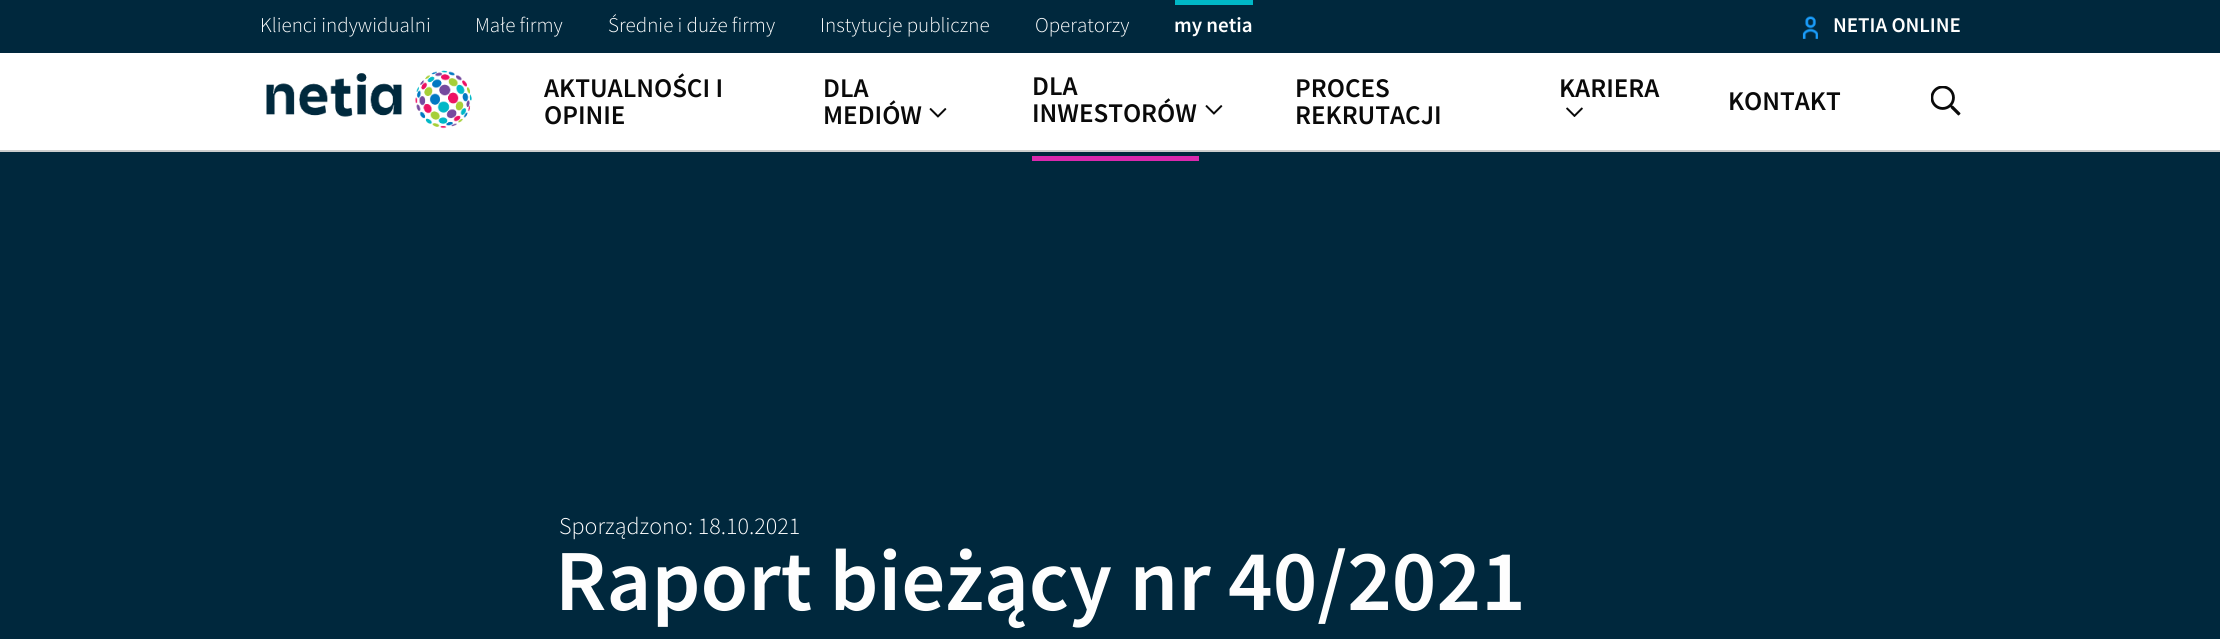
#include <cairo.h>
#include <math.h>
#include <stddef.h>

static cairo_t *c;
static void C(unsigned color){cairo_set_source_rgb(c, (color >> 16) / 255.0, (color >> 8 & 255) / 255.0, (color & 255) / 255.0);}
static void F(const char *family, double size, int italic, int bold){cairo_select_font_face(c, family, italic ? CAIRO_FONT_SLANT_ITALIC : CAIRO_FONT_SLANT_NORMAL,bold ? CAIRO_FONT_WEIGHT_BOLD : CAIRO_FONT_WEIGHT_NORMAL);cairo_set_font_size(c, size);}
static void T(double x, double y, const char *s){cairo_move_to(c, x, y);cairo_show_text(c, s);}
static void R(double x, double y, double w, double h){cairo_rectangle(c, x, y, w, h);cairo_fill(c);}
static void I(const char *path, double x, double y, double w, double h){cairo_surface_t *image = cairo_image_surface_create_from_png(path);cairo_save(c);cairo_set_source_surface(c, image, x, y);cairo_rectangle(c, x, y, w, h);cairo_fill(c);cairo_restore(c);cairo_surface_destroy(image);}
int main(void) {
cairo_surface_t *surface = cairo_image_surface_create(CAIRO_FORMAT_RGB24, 2220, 639);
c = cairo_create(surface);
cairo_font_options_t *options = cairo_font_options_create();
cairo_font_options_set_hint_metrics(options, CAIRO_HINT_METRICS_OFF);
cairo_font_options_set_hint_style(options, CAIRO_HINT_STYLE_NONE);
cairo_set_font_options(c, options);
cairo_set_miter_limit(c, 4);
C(0xffffff);
cairo_paint(c);
C(0x00283d);
R(0,0,2220,53);
F("Source Sans Pro Light",21,0,0);
C(0xfefefe);
T(260,32,"Klienci indywidualni");
T(475,32,"Małe firmy");
T(608,32,"Średnie i duże firmy");
T(820,32,"Instytucje publiczne");
T(1035,32,"Operatorzy");
C(0x00b8c7);
R(1175,0,78,5);
F("Source Sans Pro SemiBold",21,0,0);
C(0xfefefe);
T(1174,32,"my netia");
I("1.png",1802,16,16,23);
T(1833,32,"NETIA ONLINE");
C(0xcdcdcd);
R(0,150,2220,2);
I("2.png",266,70,206,59);
F("Source Sans Pro SemiBold",27,0,0);
C(0x0a0a0a);
T(544,97,"AKTUALNOŚCI I");
T(544,124,"OPINIE");
T(823,97,"DLA");
T(823,124,"MEDIÓW");
I("3.png",929,108,18,10);
T(1032,95,"DLA");
T(1032,122,"INWESTORÓW");
I("4.png",1205,105,18,10);
C(0x00283d);
R(0,152,2220,487);
C(0xd929ae);
R(1032,156,167,5);
C(0x0a0a0a);
T(1295,97,"PROCES");
T(1295,124,"REKRUTACJI");
T(1559,97,"KARIERA");
I("5.png",1566,107,17,10);
T(1728,110,"KONTAKT");
I("6.png",1931,86,30,30);
F("Source Sans Pro Light",24,0,0);
C(0xfefefe);
T(559,534,"Sporządzono: 18.10.2021");
F("Source Sans Pro SemiBold",87,0,0);
T(555,610,"Raport bieżący nr 40/2021");
cairo_surface_write_to_png(surface, "o.png");
cairo_font_options_destroy(options);
cairo_destroy(c);
cairo_surface_destroy(surface);
return 0;
}
